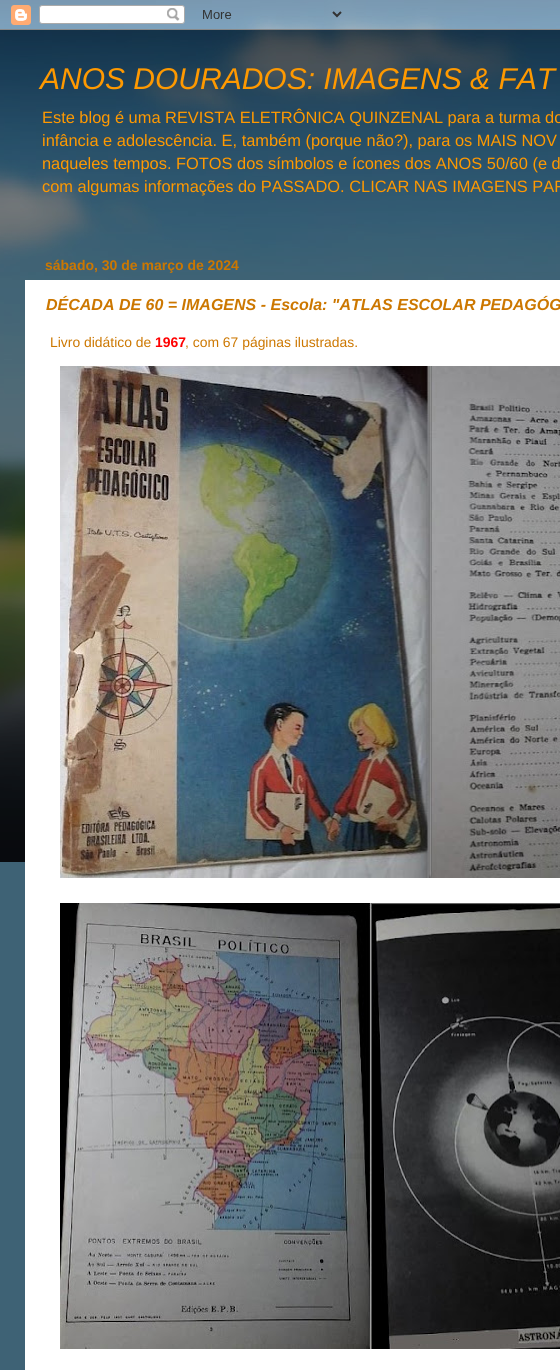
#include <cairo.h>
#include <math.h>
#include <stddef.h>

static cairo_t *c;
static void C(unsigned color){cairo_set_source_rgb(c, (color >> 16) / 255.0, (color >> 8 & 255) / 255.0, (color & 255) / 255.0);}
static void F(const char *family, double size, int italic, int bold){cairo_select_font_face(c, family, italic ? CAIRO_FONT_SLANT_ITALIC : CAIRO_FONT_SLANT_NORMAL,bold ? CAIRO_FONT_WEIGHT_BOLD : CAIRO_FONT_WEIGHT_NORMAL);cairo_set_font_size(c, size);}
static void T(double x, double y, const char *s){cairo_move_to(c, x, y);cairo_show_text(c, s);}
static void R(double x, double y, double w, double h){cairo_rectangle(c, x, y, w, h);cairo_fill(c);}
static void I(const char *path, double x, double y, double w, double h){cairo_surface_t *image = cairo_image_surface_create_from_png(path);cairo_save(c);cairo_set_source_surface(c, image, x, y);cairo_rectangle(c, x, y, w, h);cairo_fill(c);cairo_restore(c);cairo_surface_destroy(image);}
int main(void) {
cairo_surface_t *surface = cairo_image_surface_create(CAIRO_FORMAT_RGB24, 560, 1370);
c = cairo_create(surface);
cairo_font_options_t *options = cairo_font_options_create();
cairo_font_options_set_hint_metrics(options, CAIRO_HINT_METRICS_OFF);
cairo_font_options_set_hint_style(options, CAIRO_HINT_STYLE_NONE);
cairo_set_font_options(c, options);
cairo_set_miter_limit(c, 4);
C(0x3e6275);
cairo_paint(c);
I("1.png",0,0,560,862);
I("2.png",0,0,560,30);
F("Liberation Sans",30,1,0);
C(0xff9900);
T(40,89,"ANOS DOURADOS: IMAGENS & FAT");
F("Liberation Sans",16.4,0,0);
T(42,123,"Este blog é uma REVISTA ELETRÔNICA QUINZENAL para a turma do");
T(42,146,"infância e adolescência. E, também (porque não?), para os MAIS NOV");
T(42,169,"naqueles tempos. FOTOS dos símbolos e ícones dos ANOS 50/60 (e d");
T(42,192,"com algumas informações do PASSADO. CLICAR NAS IMAGENS PAR");
F("Liberation Sans",14,0,1);
C(0xcc7700);
T(45,270,"sábado, 30 de março de 2024");
C(0xffffff);
R(25,280,535,1090);
F("Liberation Sans",16,1,1);
C(0xcc7700);
T(46,310,"DÉCADA DE 60 = IMAGENS - Escola: \"ATLAS ESCOLAR PEDAGÓG");
F("Liberation Sans",13.9,0,0);
T(50,347,"Livro didático de");
F("Liberation Sans",13.9,0,1);
C(0xff0000);
T(155,347,"1967");
F("Liberation Sans",13.9,0,0);
C(0xcc7700);
T(185,347,", com 67 páginas ilustradas.");
I("3.png",60,366,500,512);
I("4.png",60,903,500,446);
cairo_surface_write_to_png(surface, "o.png");
cairo_font_options_destroy(options);
cairo_destroy(c);
cairo_surface_destroy(surface);
return 0;
}
